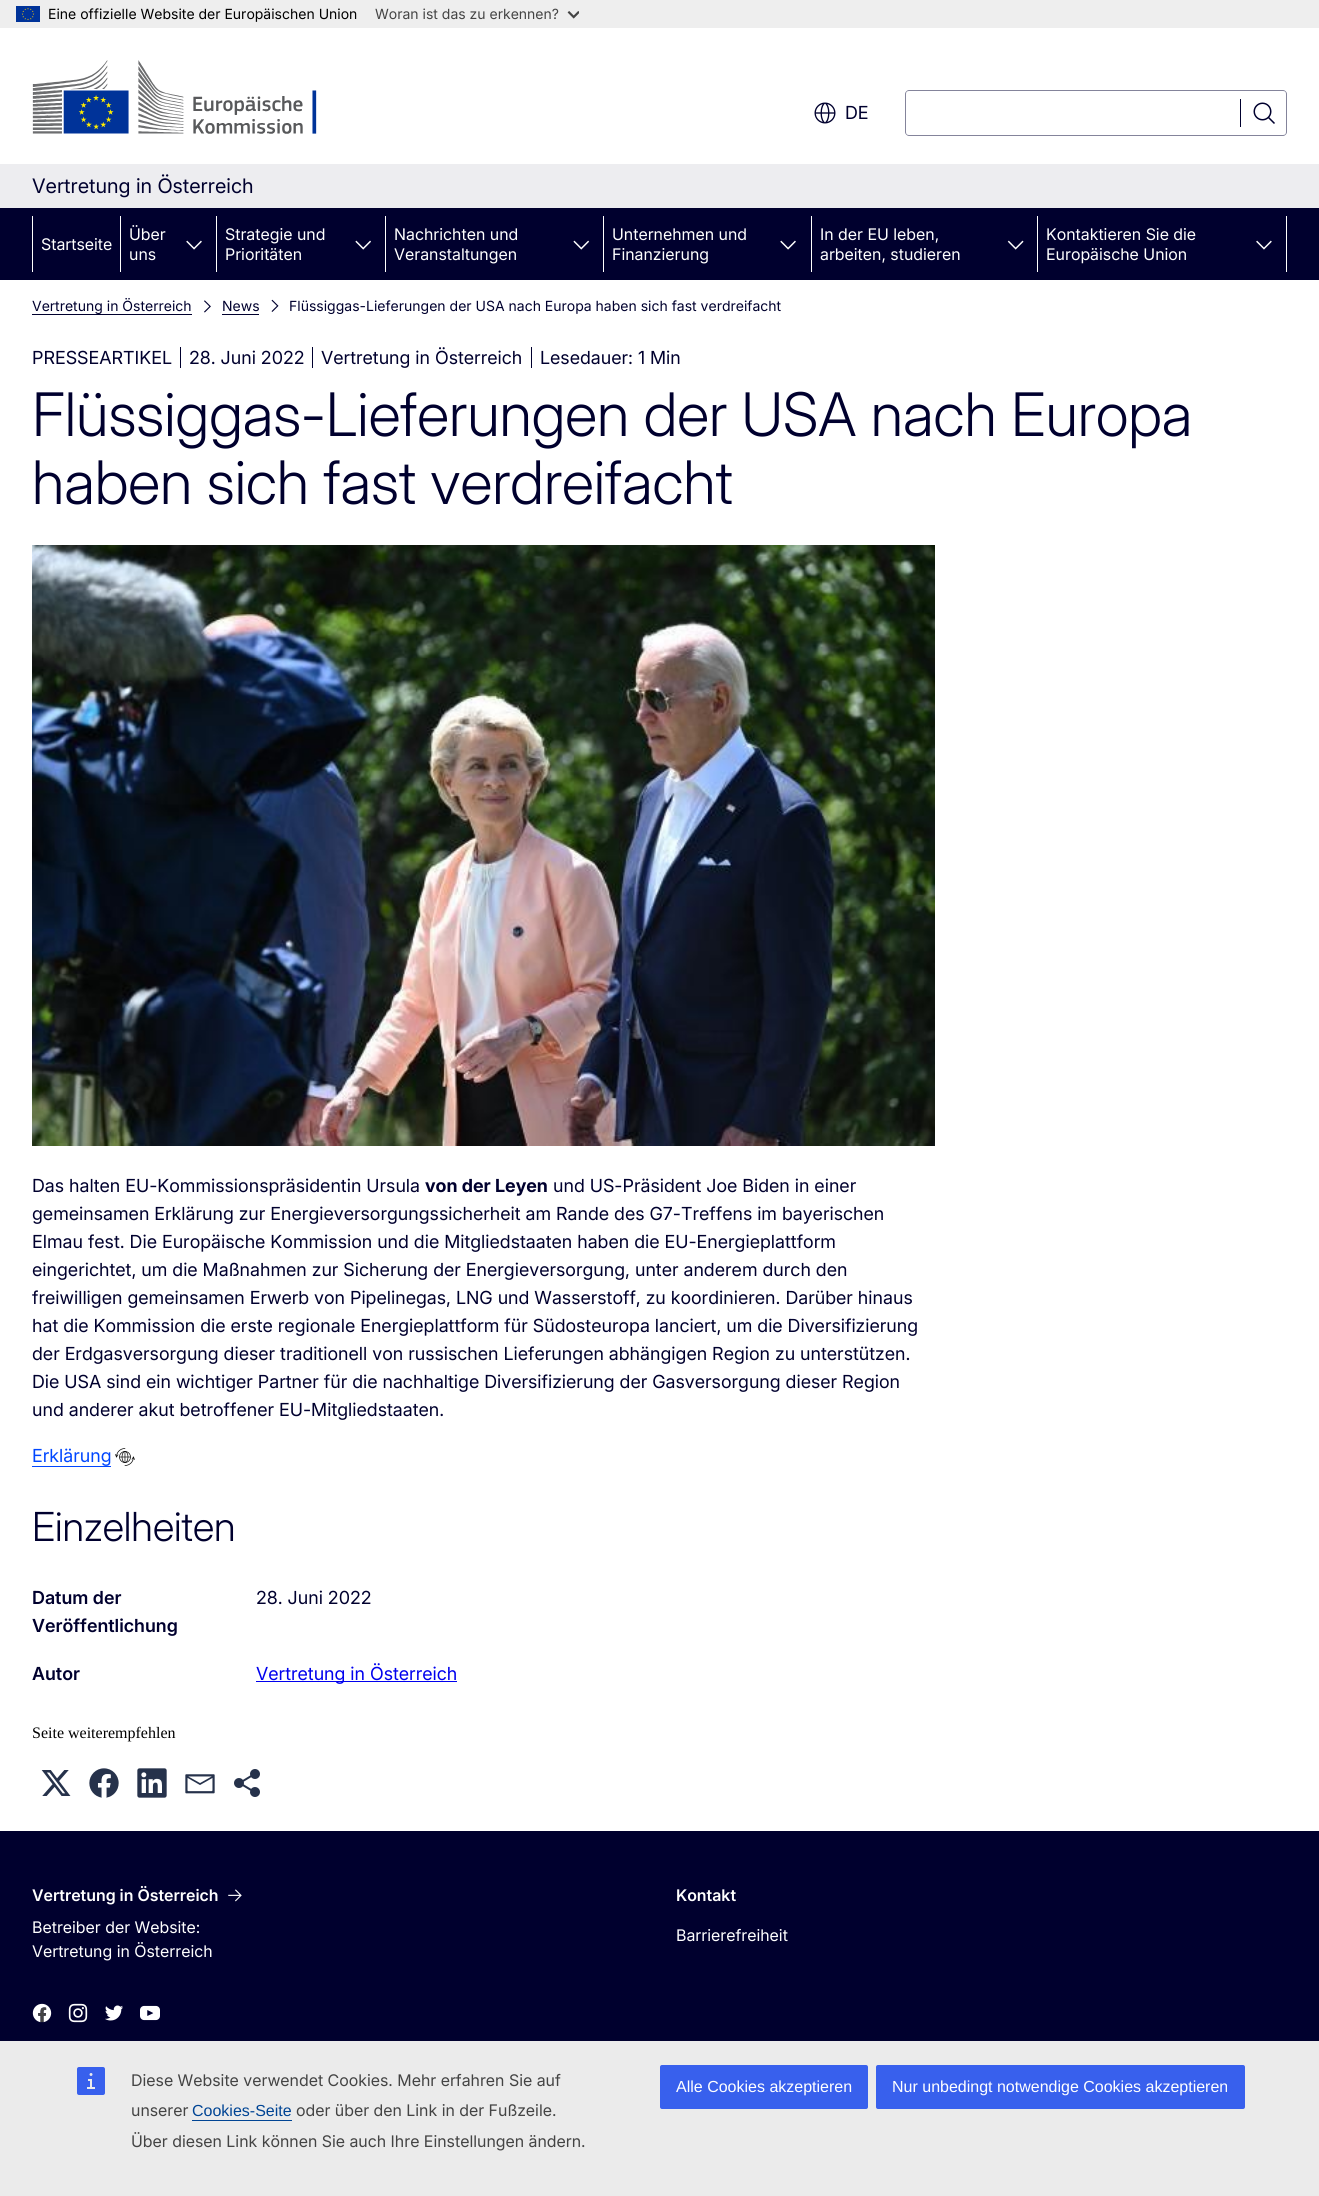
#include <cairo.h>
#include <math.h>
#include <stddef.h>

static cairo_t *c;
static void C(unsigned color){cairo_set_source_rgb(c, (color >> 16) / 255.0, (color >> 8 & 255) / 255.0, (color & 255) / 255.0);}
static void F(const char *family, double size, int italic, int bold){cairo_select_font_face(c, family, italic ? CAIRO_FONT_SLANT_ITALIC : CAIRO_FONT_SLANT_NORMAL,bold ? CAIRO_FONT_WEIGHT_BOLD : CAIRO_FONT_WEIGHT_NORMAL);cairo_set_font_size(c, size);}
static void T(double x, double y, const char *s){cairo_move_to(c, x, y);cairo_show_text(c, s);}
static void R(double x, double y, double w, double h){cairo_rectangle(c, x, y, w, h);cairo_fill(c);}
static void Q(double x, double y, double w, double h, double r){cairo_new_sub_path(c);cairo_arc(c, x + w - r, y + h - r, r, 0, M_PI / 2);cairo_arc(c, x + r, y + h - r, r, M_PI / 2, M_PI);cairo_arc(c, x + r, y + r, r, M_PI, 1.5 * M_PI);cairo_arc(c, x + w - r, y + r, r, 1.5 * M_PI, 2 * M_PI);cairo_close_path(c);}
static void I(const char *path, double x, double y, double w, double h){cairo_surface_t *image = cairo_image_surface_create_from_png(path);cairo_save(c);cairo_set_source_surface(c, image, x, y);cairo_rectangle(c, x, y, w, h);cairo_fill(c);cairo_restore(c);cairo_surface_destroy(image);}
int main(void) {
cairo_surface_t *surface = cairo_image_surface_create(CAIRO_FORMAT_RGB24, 1319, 2196);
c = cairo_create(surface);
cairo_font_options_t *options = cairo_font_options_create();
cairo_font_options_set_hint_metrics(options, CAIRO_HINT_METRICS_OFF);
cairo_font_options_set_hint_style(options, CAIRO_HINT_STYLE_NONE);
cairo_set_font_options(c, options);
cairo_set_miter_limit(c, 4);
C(0xffffff);
cairo_paint(c);
C(0xeeeeee);
R(0,0,1319,28);
I("1.png",16,6,24,16);
F("Inter",14,0,0);
C(0x000000);
T(48,19,"Eine offizielle Website der Europäischen Union");
C(0x444444);
T(375,19,"Woran ist das zu erkennen?");
I("2.png",567,11,12,8);
I("3.png",32,60,285,74);
I("4.png",814,102,22,22);
F("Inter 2",18,0,0);
C(0x00002e);
T(845,119,"DE");
C(0x84849b);
cairo_set_fill_rule(c,CAIRO_FILL_RULE_EVEN_ODD);
cairo_new_path(c);
cairo_move_to(c,909,90);
cairo_line_to(c,1241,90);
cairo_line_to(c,1241,136);
cairo_line_to(c,909,136);
cairo_curve_to(c,907,136,905,134,905,132);
cairo_line_to(c,905,94);
cairo_curve_to(c,905,92,907,90,909,90);
cairo_close_path(c);
cairo_move_to(c,909,91);
cairo_line_to(c,1241,91);
cairo_line_to(c,1241,135);
cairo_line_to(c,909,135);
cairo_curve_to(c,907,135,906,134,906,132);
cairo_line_to(c,906,94);
cairo_curve_to(c,906,92,907,91,909,91);
cairo_close_path(c);
cairo_fill(c);
cairo_new_path(c);
cairo_move_to(c,1241,90);
cairo_line_to(c,1283,90);
cairo_curve_to(c,1285,90,1287,92,1287,94);
cairo_line_to(c,1287,132);
cairo_curve_to(c,1287,134,1285,136,1283,136);
cairo_line_to(c,1241,136);
cairo_close_path(c);
cairo_move_to(c,1241,91);
cairo_line_to(c,1283,91);
cairo_curve_to(c,1285,91,1286,92,1286,94);
cairo_line_to(c,1286,132);
cairo_curve_to(c,1286,134,1285,135,1283,135);
cairo_line_to(c,1241,135);
cairo_close_path(c);
cairo_fill(c);
C(0x00002e);
R(1240,99,1,28);
I("5.png",1253,102,22,22);
C(0xededf0);
R(0,164,1319,44);
F("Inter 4",20,0,0);
C(0x00002e);
T(32,193,"Vertretung in Österreich");
R(0,208,1319,72);
C(0xffffff);
R(32,216,1,56);
F("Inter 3",16,0,0);
T(41,250,"Startseite");
R(120,216,1,56);
T(129,240,"Über");
T(129,260,"uns");
I("6.png",186,240,16,10);
R(216,216,1,56);
T(225,240,"Strategie und");
T(225,260,"Prioritäten");
I("7.png",355,240,16,10);
R(385,216,1,56);
T(394,240,"Nachrichten und");
T(394,260,"Veranstaltungen");
I("8.png",573,240,17,10);
R(603,216,1,56);
T(612,240,"Unternehmen und");
T(612,260,"Finanzierung");
I("9.png",780,240,16,10);
R(811,216,1,56);
T(820,240,"In der EU leben,");
T(820,260,"arbeiten, studieren");
I("10.png",1007,240,17,10);
R(1037,216,1,56);
T(1046,240,"Kontaktieren Sie die");
T(1046,260,"Europäische Union");
I("11.png",1256,240,16,10);
R(1286,216,1,56);
F("Inter",14,0,0);
C(0x00002e);
T(32,311,"Vertretung in Österreich");
R(32,314,160,1);
I("12.png",204,300,7,13);
T(222,311,"News");
R(222,314,37,1);
I("13.png",271,299,8,13);
T(289,311,"Flüssiggas-Lieferungen der USA nach Europa haben sich fast verdreifacht");
F("Inter 2",18,0,0);
T(32,364,"PRESSEARTIKEL");
R(180,347,1,21);
T(189,364,"28. Juni 2022");
R(312,347,1,21);
T(321,364,"Vertretung in Österreich");
R(531,347,1,21);
T(540,364,"Lesedauer: 1 Min");
F("Inter Light",60,0,0);
T(32,436,"Flüssiggas-Lieferungen der USA nach Europa");
T(32,504,"haben sich fast verdreifacht");
I("14.png",32,545,903,601);
F("Inter 2",18,0,0);
T(32,1192,"Das halten EU-Kommissionspräsidentin Ursula");
F("Inter",18,0,1);
T(425,1192,"von der Leyen");
F("Inter 2",18,0,0);
T(553,1192,"und US-Präsident Joe Biden in einer");
T(32,1220,"gemeinsamen Erklärung zur Energieversorgungssicherheit am Rande des G7-Treffens im bayerischen");
T(32,1248,"Elmau fest. Die Europäische Kommission und die Mitgliedstaaten haben die EU-Energieplattform");
T(32,1276,"eingerichtet, um die Maßnahmen zur Sicherung der Energieversorgung, unter anderem durch den");
T(32,1304,"freiwilligen gemeinsamen Erwerb von Pipelinegas, LNG und Wasserstoff, zu koordinieren. Darüber hinaus");
T(32,1332,"hat die Kommission die erste regionale Energieplattform für Südosteuropa lanciert, um die Diversifizierung");
T(32,1360,"der Erdgasversorgung dieser traditionell von russischen Lieferungen abhängigen Region zu unterstützen.");
T(32,1388,"Die USA sind ein wichtiger Partner für die nachhaltige Diversifizierung der Gasversorgung dieser Region");
T(32,1416,"und anderer akut betroffener EU-Mitgliedstaaten.");
C(0x0046ff);
T(32,1462,"Erklärung");
R(32,1466,79,1);
I("15.png",115,1448,20,18);
F("Inter Light",40,0,0);
C(0x00002e);
T(32,1541,"Einzelheiten");
F("Inter SemiBold",18,0,0);
T(32,1604,"Datum der");
T(32,1632,"Veröffentlichung");
F("Inter 2",18,0,0);
T(256,1604,"28. Juni 2022");
F("Inter SemiBold",18,0,0);
T(32,1680,"Autor");
C(0x0000ee);
R(256,1681,201,1);
F("Inter 2",18,0,0);
T(256,1680,"Vertretung in Österreich");
F("Liberation Serif",16,0,0);
C(0x000000);
T(32,1738,"Seite weiterempfehlen");
I("16.png",41,1770,30,26);
I("17.png",89,1768,30,30);
I("18.png",137,1768,30,30);
I("19.png",185,1774,30,20);
I("20.png",234,1769,26,28);
C(0x00002e);
R(0,1831,1319,210);
F("Inter 2 SemiBold",16,0,0);
C(0xffffff);
T(32,1901,"Vertretung in Österreich");
I("21.png",228,1889,14,13);
F("Inter 3",16,0,0);
T(32,1933,"Betreiber der Website:");
T(32,1957,"Vertretung in Österreich");
I("22.png",32,2003,20,20);
I("23.png",68,2003,20,20);
I("24.png",105,2005,18,16);
I("25.png",140,2005,20,16);
F("Inter 2 SemiBold",16,0,0);
T(676,1901,"Kontakt");
F("Inter 3",16,0,0);
T(676,1941,"Barrierefreiheit");
C(0xebebeb);
R(0,2041,1319,155);
I("26.png",77,2067,28,28);
C(0x444444);
T(131,2086,"Diese Website verwendet Cookies. Mehr erfahren Sie auf");
T(131,2116,"unserer");
F("Liberation Sans",16,0,0);
C(0x004494);
T(192,2116,"Cookies-Seite");
R(192,2120,100,1);
F("Inter 3",16,0,0);
C(0x444444);
T(296,2116,"oder über den Link in der Fußzeile.");
T(131,2147,"Über diesen Link können Sie auch Ihre Einstellungen ändern.");
C(0x3860ed);
Q(660,2065,208,44,2);
cairo_fill(c);
F("Liberation Sans",16,0,0);
C(0xffffff);
T(676,2092,"Alle Cookies akzeptieren");
C(0x3860ed);
Q(876,2065,369,44,2);
cairo_fill(c);
C(0xffffff);
T(892,2092,"Nur unbedingt notwendige Cookies akzeptieren");
cairo_surface_write_to_png(surface, "o.png");
cairo_font_options_destroy(options);
cairo_destroy(c);
cairo_surface_destroy(surface);
return 0;
}
